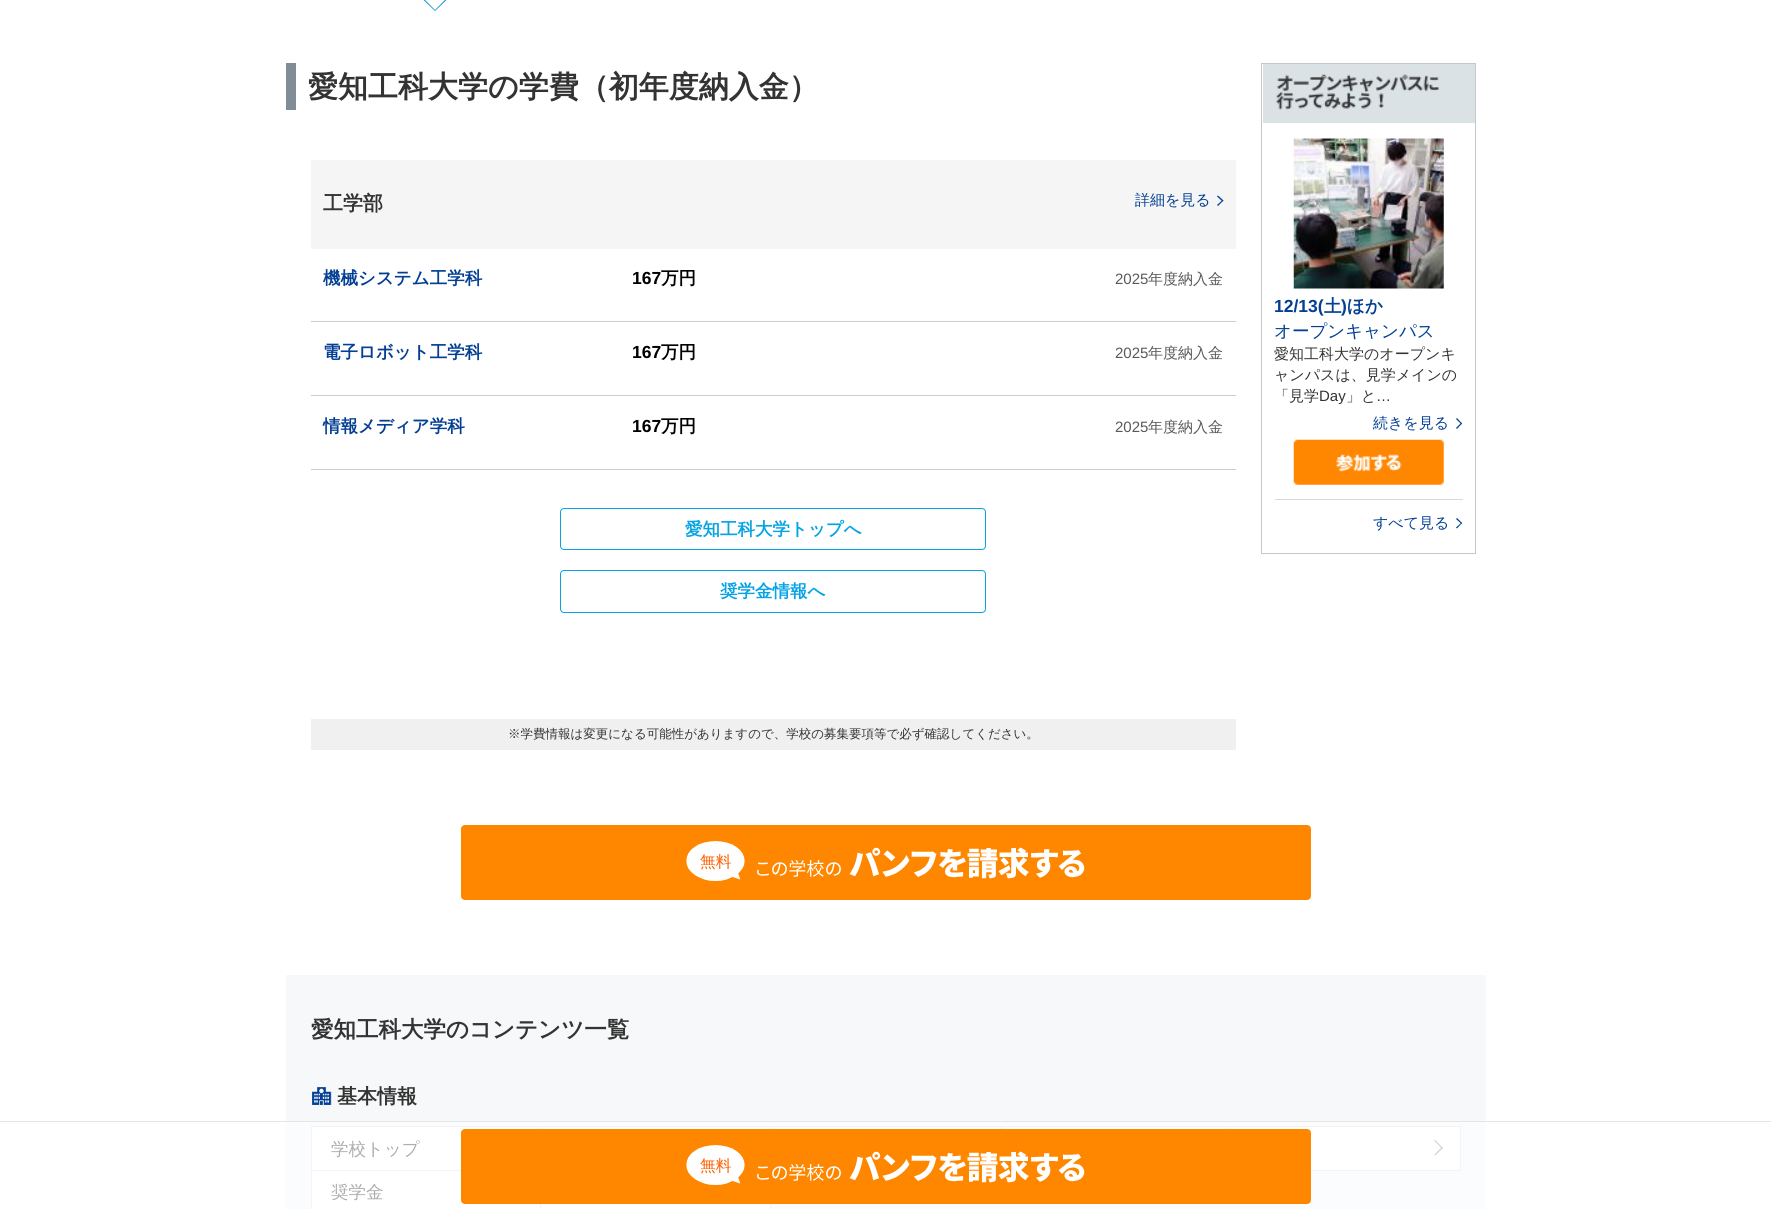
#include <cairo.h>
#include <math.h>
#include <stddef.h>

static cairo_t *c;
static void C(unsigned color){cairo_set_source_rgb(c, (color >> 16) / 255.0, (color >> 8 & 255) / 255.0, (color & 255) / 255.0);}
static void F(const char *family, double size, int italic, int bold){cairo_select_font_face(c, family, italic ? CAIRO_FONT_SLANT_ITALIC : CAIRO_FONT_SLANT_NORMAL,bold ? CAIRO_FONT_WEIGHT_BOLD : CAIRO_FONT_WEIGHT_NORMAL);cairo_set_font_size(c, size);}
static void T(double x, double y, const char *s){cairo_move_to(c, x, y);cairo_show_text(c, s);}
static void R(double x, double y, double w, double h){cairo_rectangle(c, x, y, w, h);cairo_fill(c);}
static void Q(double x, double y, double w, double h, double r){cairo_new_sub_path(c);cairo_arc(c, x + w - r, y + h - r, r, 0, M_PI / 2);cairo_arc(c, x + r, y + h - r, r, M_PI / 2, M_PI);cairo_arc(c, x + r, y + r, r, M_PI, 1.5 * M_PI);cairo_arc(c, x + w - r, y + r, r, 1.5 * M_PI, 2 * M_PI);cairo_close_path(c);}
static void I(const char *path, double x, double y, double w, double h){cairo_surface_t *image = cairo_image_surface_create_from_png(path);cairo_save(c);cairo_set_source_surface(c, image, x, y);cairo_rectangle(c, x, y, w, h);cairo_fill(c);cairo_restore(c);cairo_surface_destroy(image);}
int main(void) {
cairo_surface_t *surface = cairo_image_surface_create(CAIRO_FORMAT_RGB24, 1771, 1209);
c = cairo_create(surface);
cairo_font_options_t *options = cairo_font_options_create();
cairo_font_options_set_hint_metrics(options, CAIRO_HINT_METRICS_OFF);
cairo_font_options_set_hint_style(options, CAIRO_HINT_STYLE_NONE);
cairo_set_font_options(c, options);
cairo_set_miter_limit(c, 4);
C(0xffffff);
cairo_paint(c);
C(0x0790d0);
cairo_new_path(c);
cairo_move_to(c,422.5,-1);
cairo_line_to(c,447.5,-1);
cairo_line_to(c,435,11);
cairo_close_path(c);
cairo_fill(c);
C(0xffffff);
cairo_new_path(c);
cairo_move_to(c,424,-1);
cairo_line_to(c,446,-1);
cairo_line_to(c,435,10);
cairo_close_path(c);
cairo_fill(c);
C(0x808d96);
R(286,63,10,47);
F("WenQuanYi Zen Hei",30,0,1);
C(0x333333);
T(308,97,"愛知工科大学の学費（初年度納入金）");
C(0xf5f5f5);
R(311,160,925,89);
F("WenQuanYi Zen Hei",20,0,1);
C(0x333333);
T(323,210,"工学部");
F("WenQuanYi Zen Hei Medium",15,0,0);
C(0x043f94);
T(1135,205,"詳細を見る");
cairo_new_path(c);
cairo_move_to(c,1218,195.5);
cairo_line_to(c,1223.5,200.5);
cairo_line_to(c,1222.5,201.5);
cairo_line_to(c,1217,196.5);
cairo_close_path(c);
cairo_fill(c);
cairo_new_path(c);
cairo_move_to(c,1222.5,200);
cairo_line_to(c,1223.5,200.5);
cairo_line_to(c,1218,206);
cairo_line_to(c,1217,205);
cairo_close_path(c);
cairo_fill(c);
F("WenQuanYi Zen Hei",17.5,0,1);
T(323,284,"機械システム工学科");
F("Liberation Sans",17.5,0,1);
C(0x000000);
T(632,284,"167");
F("WenQuanYi Zen Hei",17.5,0,1);
T(661,284,"万円");
F("Liberation Sans",15,0,0);
C(0x595959);
T(1115,284,"2025");
F("WenQuanYi Zen Hei Medium",15,0,0);
T(1148,284,"年度納入金");
C(0xcccccc);
R(311,321,925,1);
F("WenQuanYi Zen Hei",17.5,0,1);
C(0x043f94);
T(323,358,"電子ロボット工学科");
F("Liberation Sans",17.5,0,1);
C(0x000000);
T(632,358,"167");
F("WenQuanYi Zen Hei",17.5,0,1);
T(661,358,"万円");
F("Liberation Sans",15,0,0);
C(0x595959);
T(1115,358,"2025");
F("WenQuanYi Zen Hei Medium",15,0,0);
T(1148,358,"年度納入金");
C(0xcccccc);
R(311,395,925,1);
F("WenQuanYi Zen Hei",17.5,0,1);
C(0x043f94);
T(323,432,"情報メディア学科");
F("Liberation Sans",17.5,0,1);
C(0x000000);
T(632,432,"167");
F("WenQuanYi Zen Hei",17.5,0,1);
T(661,432,"万円");
F("Liberation Sans",15,0,0);
C(0x595959);
T(1115,432,"2025");
F("WenQuanYi Zen Hei Medium",15,0,0);
T(1148,432,"年度納入金");
C(0xcccccc);
R(311,469,925,1);
Q(560.5,508.5,425,41,3.5);
C(0x07a4e4);
cairo_set_line_width(c,1);
cairo_stroke(c);
F("WenQuanYi Zen Hei",17.5,0,1);
T(685,535,"愛知工科大学トップへ");
Q(560.5,570.5,425,42,3.5);
cairo_stroke(c);
T(720,597,"奨学金情報へ");
C(0xf0f0f0);
R(311,719,925,31);
F("WenQuanYi Zen Hei Medium",12.5,0,0);
C(0x333333);
T(508,738,"※学費情報は変更になる可能性がありますので、学校の募集要項等で必ず確認してください。");
cairo_rectangle(c,1261.5,63.5,214,490);
C(0xc7c7c7);
cairo_stroke(c);
C(0xdae2e5);
R(1263,64,212,59);
I("1.png",1276,74,163,36);
C(0xd9d9d9);
R(1275,499,188,1);
I("2.png",1293,138,151,151);
F("Liberation Sans",17.5,0,1);
C(0x043f94);
T(1274,312,"12/13(");
F("WenQuanYi Zen Hei",17.5,0,1);
T(1324,312,"土");
F("Liberation Sans",17.5,0,1);
T(1341,312,")");
F("WenQuanYi Zen Hei",17.5,0,1);
T(1347,312,"ほか");
F("WenQuanYi Zen Hei Medium",17.5,0,0);
T(1274,337,"オープンキャンパス");
F("WenQuanYi Zen Hei Medium",15,0,0);
C(0x333333);
T(1274,359,"愛知工科大学のオープンキ");
T(1274,380,"ャンパスは、見学メインの");
T(1274,401,"「見学");
F("Liberation Sans",15,0,0);
T(1319,401,"Day");
F("WenQuanYi Zen Hei Medium",15,0,0);
T(1346,401,"」と");
F("Liberation Sans",15,0,0);
T(1376,401,"…");
F("WenQuanYi Zen Hei Medium",15,0,0);
C(0x043f94);
T(1373,428,"続きを見る");
cairo_new_path(c);
cairo_move_to(c,1457,418);
cairo_line_to(c,1462,423.5);
cairo_line_to(c,1461.5,424.5);
cairo_line_to(c,1456,419);
cairo_close_path(c);
cairo_fill(c);
cairo_new_path(c);
cairo_move_to(c,1461.5,422.5);
cairo_line_to(c,1462,423.5);
cairo_line_to(c,1457,429);
cairo_line_to(c,1456,428);
cairo_close_path(c);
cairo_fill(c);
I("3.png",1293,439,151,46);
T(1373,528,"すべて見る");
cairo_new_path(c);
cairo_move_to(c,1457,518);
cairo_line_to(c,1462,523);
cairo_line_to(c,1461.5,524);
cairo_line_to(c,1456,519);
cairo_close_path(c);
cairo_fill(c);
cairo_new_path(c);
cairo_move_to(c,1461.5,522.5);
cairo_line_to(c,1462,523);
cairo_line_to(c,1457,528.5);
cairo_line_to(c,1456,527.5);
cairo_close_path(c);
cairo_fill(c);
C(0xff8700);
Q(461,825,850,75,4);
cairo_fill(c);
I("4.png",686,841,399,40);
C(0xf6f8f9);
R(286,975,1200,146);
C(0xfbfcfd);
R(286,1122,1200,87);
F("WenQuanYi Zen Hei",22.5,0,1);
C(0x333333);
T(311,1037,"愛知工科大学のコンテンツ一覧");
I("5.png",312,1087,20,18);
F("WenQuanYi Zen Hei",20,0,1);
T(337,1103,"基本情報");
C(0xffffff);
R(541,1127,229,2);
C(0xf4f4f4);
R(541,1126,920,1);
R(770,1126,1,3);
C(0xffffff);
cairo_rectangle(c,311.5,1126.5,229,44);
cairo_fill_preserve(c);
C(0xf4f4f4);
cairo_stroke(c);
F("WenQuanYi Zen Hei Medium",17.5,0,0);
C(0xadadad);
T(331,1155,"学校トップ");
C(0xffffff);
R(771,1127,229,2);
C(0xf4f4f4);
R(1000,1126,1,3);
C(0xffffff);
R(1001,1127,229,2);
C(0xf4f4f4);
R(1230,1126,1,3);
C(0xffffff);
R(1231,1127,229,43);
C(0xf4f4f4);
R(1460,1126,1,45);
R(1311,1170,150,1);
C(0xccd1d5);
cairo_new_path(c);
cairo_move_to(c,1435,1140);
cairo_line_to(c,1443,1148);
cairo_line_to(c,1442,1148.5);
cairo_line_to(c,1434,1140.5);
cairo_close_path(c);
cairo_fill(c);
cairo_new_path(c);
cairo_move_to(c,1442,1147);
cairo_line_to(c,1443,1148);
cairo_line_to(c,1435,1155.5);
cairo_line_to(c,1434,1155);
cairo_close_path(c);
cairo_fill(c);
C(0xffffff);
R(312,1171,228,38);
C(0xf4f4f4);
R(540,1204,1,5);
R(311,1171,1,38);
C(0xadadad);
T(331,1198,"奨学金");
C(0xffffff);
R(541,1204,229,5);
C(0xf4f4f4);
R(770,1204,1,5);
C(0xe5e5e5);
R(0,1121,1771,1);
C(0xff8700);
Q(461,1129,850,75,4);
cairo_fill(c);
I("6.png",686,1145,399,40);
cairo_surface_write_to_png(surface, "o.png");
cairo_font_options_destroy(options);
cairo_destroy(c);
cairo_surface_destroy(surface);
return 0;
}
